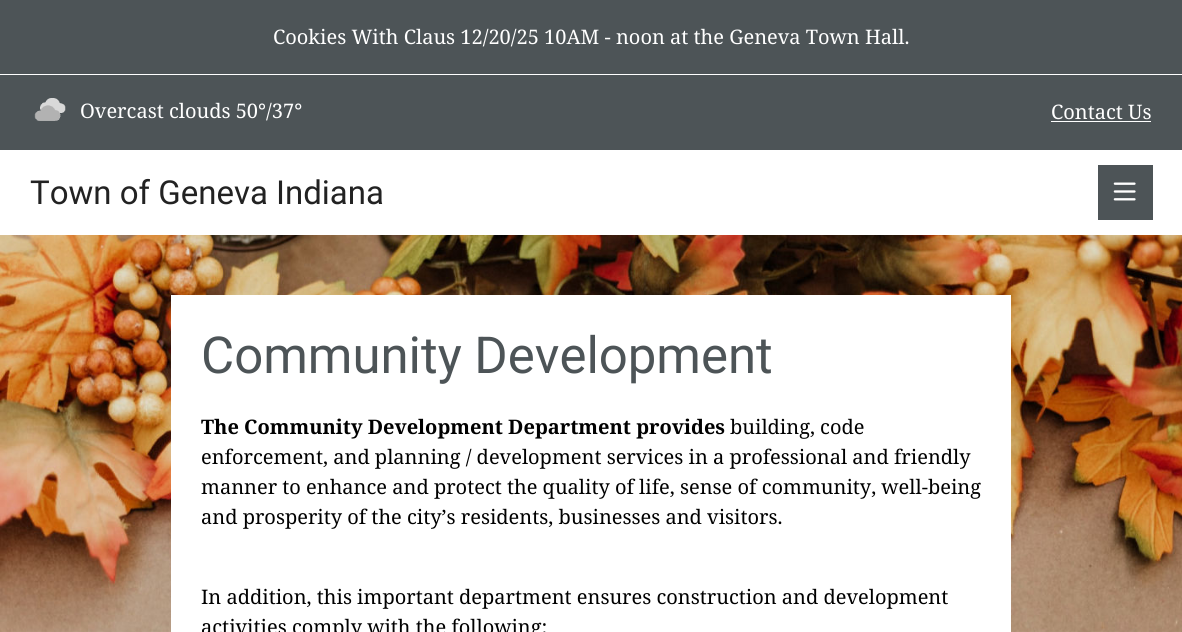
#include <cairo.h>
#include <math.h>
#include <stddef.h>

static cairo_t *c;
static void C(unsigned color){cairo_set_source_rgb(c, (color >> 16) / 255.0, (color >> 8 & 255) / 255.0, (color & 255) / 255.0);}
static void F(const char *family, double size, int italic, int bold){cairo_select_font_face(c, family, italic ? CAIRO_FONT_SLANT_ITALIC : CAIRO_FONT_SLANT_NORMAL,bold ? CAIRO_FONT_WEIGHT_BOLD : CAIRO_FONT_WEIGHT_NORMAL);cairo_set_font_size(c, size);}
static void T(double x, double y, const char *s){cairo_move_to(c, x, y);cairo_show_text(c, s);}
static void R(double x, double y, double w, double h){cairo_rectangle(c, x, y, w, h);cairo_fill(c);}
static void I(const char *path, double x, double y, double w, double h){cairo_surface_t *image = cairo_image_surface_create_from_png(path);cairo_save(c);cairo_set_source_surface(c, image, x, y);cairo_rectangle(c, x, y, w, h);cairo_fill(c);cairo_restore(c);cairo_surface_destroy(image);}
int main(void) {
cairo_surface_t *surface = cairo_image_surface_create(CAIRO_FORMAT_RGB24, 1182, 632);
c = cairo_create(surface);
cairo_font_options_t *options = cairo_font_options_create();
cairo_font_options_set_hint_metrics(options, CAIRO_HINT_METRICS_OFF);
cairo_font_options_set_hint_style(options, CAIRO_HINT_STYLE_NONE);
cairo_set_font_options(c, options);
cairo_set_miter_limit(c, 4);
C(0xffffff);
cairo_paint(c);
I("1.png",0,235,1182,397);
C(0x4d5457);
R(0,0,1182,150);
C(0xffffff);
R(0,74,1182,1);
F("Noto Serif",20,0,0);
T(273,44,"Cookies With Claus 12/20/25 10AM - noon at the Geneva Town Hall.");
I("2.png",34,98,32,23);
T(80,118,"Overcast clouds 50°/37°");
T(1051,119,"Contact Us");
R(1051,121,100,1);
F("Roboto",33,0,0);
C(0x222222);
T(30,204,"Town of Geneva Indiana");
C(0x4d5457);
R(1098,165,55,55);
I("3.png",1113,182,23,19);
C(0xffffff);
R(171,295,840,337);
F("Roboto",50.9,0,0);
C(0x4d5457);
T(201,373,"Community Development");
F("Noto Serif",20,0,1);
C(0x000000);
T(201,434,"The Community Development Department provides");
F("Noto Serif",20,0,0);
T(730,434,"building, code");
T(201,464,"enforcement, and planning / development services in a professional and friendly");
T(201,494,"manner to enhance and protect the quality of life, sense of community, well-being");
T(201,524,"and prosperity of the city’s residents, businesses and visitors.");
T(201,604,"In addition, this important department ensures construction and development");
T(201,634,"activities comply with the following:");
cairo_surface_write_to_png(surface, "o.png");
cairo_font_options_destroy(options);
cairo_destroy(c);
cairo_surface_destroy(surface);
return 0;
}
